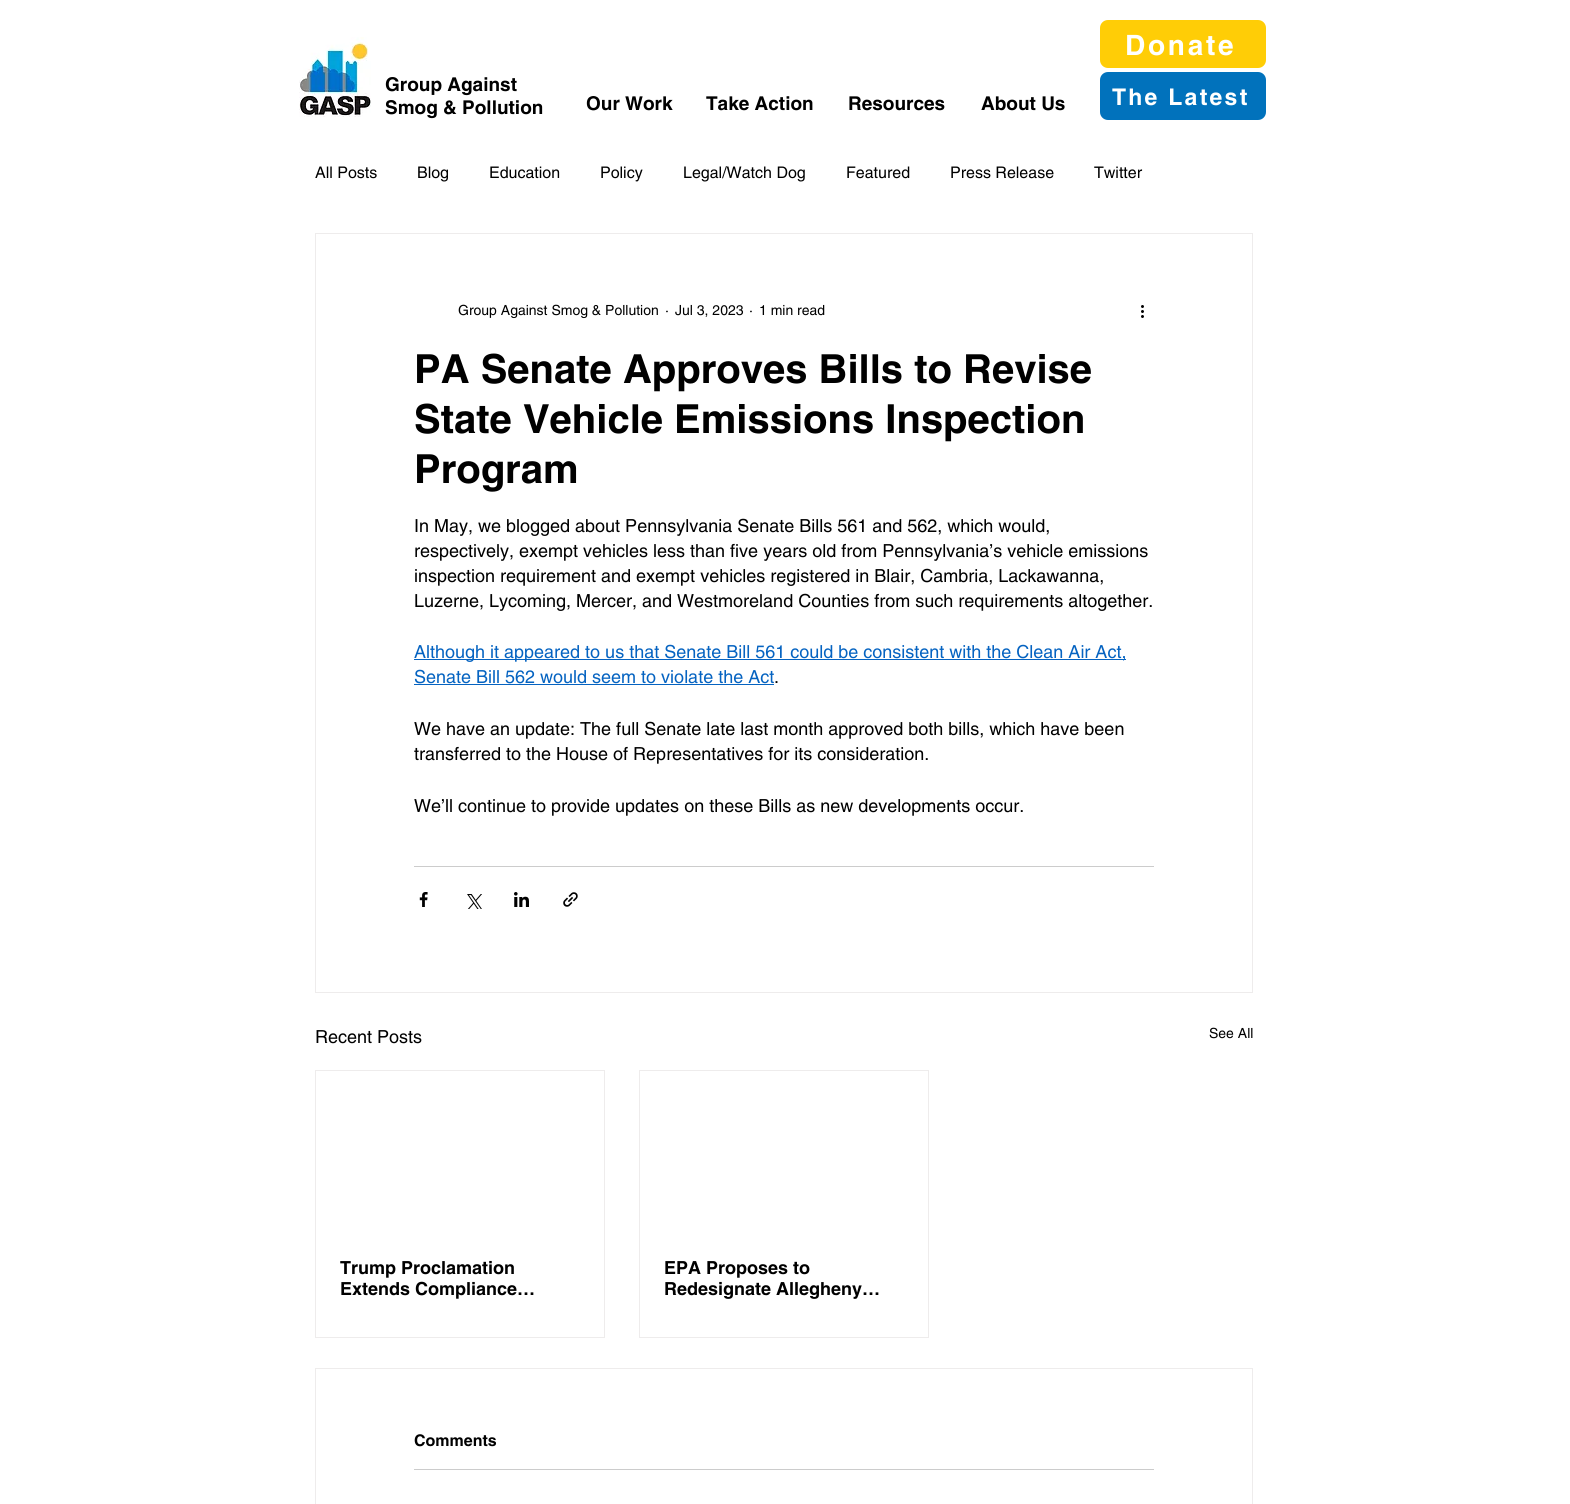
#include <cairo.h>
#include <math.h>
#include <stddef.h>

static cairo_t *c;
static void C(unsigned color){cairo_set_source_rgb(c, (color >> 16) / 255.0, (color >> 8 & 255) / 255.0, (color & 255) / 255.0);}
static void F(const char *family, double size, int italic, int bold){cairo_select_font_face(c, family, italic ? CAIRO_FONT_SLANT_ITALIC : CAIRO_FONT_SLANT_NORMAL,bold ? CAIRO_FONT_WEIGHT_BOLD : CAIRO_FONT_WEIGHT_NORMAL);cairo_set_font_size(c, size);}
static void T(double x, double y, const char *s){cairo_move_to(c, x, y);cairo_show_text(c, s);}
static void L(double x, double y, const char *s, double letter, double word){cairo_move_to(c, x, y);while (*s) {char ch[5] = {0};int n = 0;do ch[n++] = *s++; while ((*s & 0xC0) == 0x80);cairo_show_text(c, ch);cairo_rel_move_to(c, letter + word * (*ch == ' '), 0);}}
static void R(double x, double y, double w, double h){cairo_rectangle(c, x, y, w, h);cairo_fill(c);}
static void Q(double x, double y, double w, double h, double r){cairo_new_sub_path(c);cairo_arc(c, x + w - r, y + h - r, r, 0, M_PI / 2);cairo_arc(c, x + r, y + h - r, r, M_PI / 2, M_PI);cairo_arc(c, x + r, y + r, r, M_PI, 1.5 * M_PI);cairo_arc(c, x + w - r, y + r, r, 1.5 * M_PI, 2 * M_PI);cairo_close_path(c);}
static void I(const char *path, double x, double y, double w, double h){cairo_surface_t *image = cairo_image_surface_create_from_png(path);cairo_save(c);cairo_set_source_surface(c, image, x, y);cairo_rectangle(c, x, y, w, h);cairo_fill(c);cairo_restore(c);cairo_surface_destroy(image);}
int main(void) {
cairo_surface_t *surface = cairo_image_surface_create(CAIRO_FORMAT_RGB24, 1570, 1504);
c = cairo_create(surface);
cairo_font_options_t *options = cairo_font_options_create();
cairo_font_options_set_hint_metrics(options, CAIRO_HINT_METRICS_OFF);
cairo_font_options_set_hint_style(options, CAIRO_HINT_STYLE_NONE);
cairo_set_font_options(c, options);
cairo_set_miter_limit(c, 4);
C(0xffffff);
cairo_paint(c);
I("1.png",299,37,72,80);
F("helvetica",19,0,1);
C(0x000000);
T(385,91,"Group Against");
T(385,114,"Smog & Pollution");
C(0xffcd06);
Q(1100,20,166,48,8);
cairo_fill(c);
F("helvetica",28,0,1);
C(0xffffff);
L(1125,55,"Donate",2.75,0);
F("helvetica",19,0,1);
C(0x000000);
T(586,110,"Our Work");
T(706,110,"Take Action");
T(848,110,"Resources");
T(981,110,"About Us");
C(0x0172bc);
Q(1100,72,166,48,8);
cairo_fill(c);
F("helvetica",23,0,1);
C(0xffffff);
L(1112,105,"The Latest",2.25,0);
F("helvetica",16,0,0);
C(0x000000);
T(315,178,"All Posts");
T(417,178,"Blog");
T(489,178,"Education");
T(600,178,"Policy");
T(683,178,"Legal/Watch Dog");
T(846,178,"Featured");
T(950,178,"Press Release");
T(1094,178,"Twitter");
cairo_rectangle(c,315.5,233.5,937,759);
C(0xeeecec);
cairo_set_line_width(c,1);
cairo_stroke(c);
F("helvetica",14,0,0);
C(0x000000);
T(458,315,"Group Against Smog & Pollution");
T(665,315,"·");
T(675,315,"Jul 3, 2023");
T(749,315,"·");
T(759,315,"1 min read");
I("2.png",1141,305,3,13);
F("helvetica",40,0,1);
T(414,383,"PA Senate Approves Bills to Revise");
T(414,433,"State Vehicle Emissions Inspection");
T(414,483,"Program");
F("helvetica",18,0,0);
T(414,532,"In May, we blogged about Pennsylvania Senate Bills 561 and 562, which would,");
T(414,557,"respectively, exempt vehicles less than five years old from Pennsylvania’s vehicle emissions");
T(414,582,"inspection requirement and exempt vehicles registered in Blair, Cambria, Lackawanna,");
T(414,607,"Luzerne, Lycoming, Mercer, and Westmoreland Counties from such requirements altogether.");
C(0x0563c1);
R(414,659,712,1);
T(414,658,"Although it appeared to us that Senate Bill 561 could be consistent with the Clean Air Act,");
T(414,683,"Senate Bill 562 would seem to violate the Act");
R(414,684,360,1);
C(0x000000);
T(774,683,".");
T(414,735,"We have an update: The full Senate late last month approved both bills, which have been");
T(414,760,"transferred to the House of Representatives for its consideration.");
T(414,812,"We’ll continue to provide updates on these Bills as new developments occur.");
C(0xcccccc);
R(414,866,740,1);
I("3.png",419,892,9,15);
I("4.png",467,894,15,15);
I("5.png",514,892,15,15);
I("6.png",563,892,15,15);
C(0x000000);
T(315,1043,"Recent Posts");
F("helvetica",14,0,0);
T(1209,1038,"See All");
cairo_rectangle(c,315.5,1070.5,289,267);
C(0xeeecec);
cairo_stroke(c);
F("helvetica",18,0,1);
C(0x000000);
T(340,1274,"Trump Proclamation");
T(340,1295,"Extends Compliance…");
cairo_rectangle(c,639.5,1070.5,289,267);
C(0xeeecec);
cairo_stroke(c);
C(0x000000);
T(664,1274,"EPA Proposes to");
T(664,1295,"Redesignate Allegheny…");
cairo_rectangle(c,315.5,1368.5,937,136);
C(0xeeecec);
cairo_stroke(c);
F("helvetica",16,0,1);
C(0x000000);
T(414,1446,"Comments");
C(0xcccccc);
R(414,1469,740,1);
cairo_surface_write_to_png(surface, "o.png");
cairo_font_options_destroy(options);
cairo_destroy(c);
cairo_surface_destroy(surface);
return 0;
}
